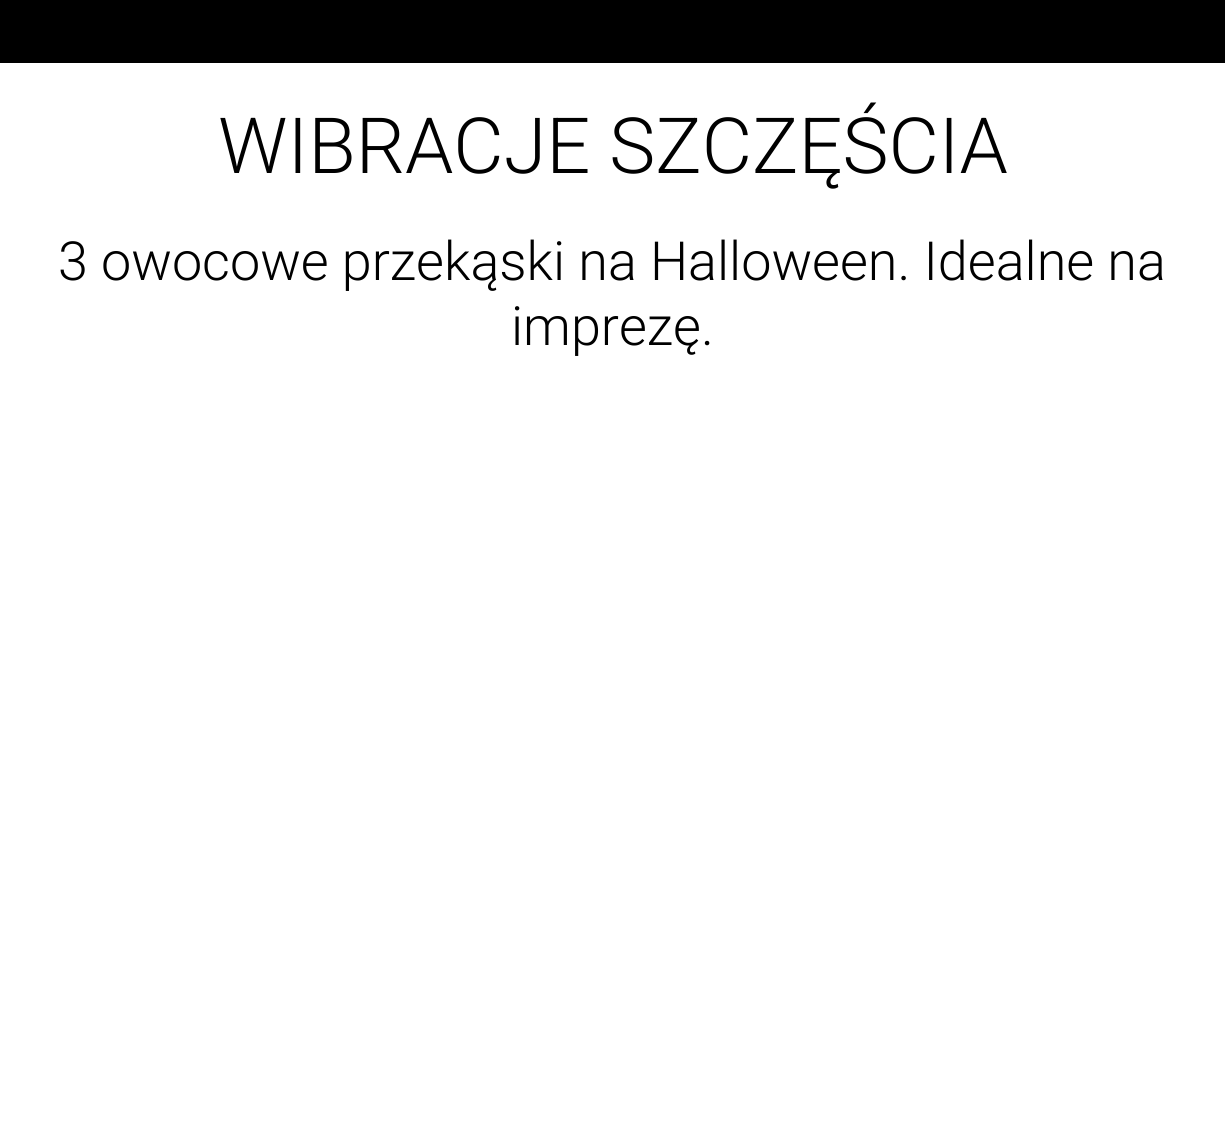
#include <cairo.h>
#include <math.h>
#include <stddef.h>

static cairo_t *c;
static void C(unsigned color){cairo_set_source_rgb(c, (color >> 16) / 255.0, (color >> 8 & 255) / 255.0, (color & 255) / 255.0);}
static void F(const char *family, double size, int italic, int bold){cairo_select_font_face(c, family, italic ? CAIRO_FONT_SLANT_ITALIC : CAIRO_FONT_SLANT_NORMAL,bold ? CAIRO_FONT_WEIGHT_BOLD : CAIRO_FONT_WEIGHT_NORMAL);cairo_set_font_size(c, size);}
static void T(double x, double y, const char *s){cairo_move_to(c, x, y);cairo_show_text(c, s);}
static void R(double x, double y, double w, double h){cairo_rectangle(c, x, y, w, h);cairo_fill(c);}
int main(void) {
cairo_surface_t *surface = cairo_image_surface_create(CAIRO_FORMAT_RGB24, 1225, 1127);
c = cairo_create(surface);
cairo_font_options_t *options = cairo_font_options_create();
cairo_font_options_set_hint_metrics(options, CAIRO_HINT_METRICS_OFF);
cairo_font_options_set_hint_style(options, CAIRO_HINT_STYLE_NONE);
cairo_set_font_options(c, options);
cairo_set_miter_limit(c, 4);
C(0xffffff);
cairo_paint(c);
C(0x000000);
R(0,0,1225,63);
F("Roboto Light",77.5,0,0);
T(218,173,"WIBRACJE SZCZĘŚCIA");
F("Roboto Light",53.9,0,0);
T(58,280,"3 owocowe przekąski na Halloween. Idealne na");
T(511,345,"imprezę.");
cairo_surface_write_to_png(surface, "o.png");
cairo_font_options_destroy(options);
cairo_destroy(c);
cairo_surface_destroy(surface);
return 0;
}
